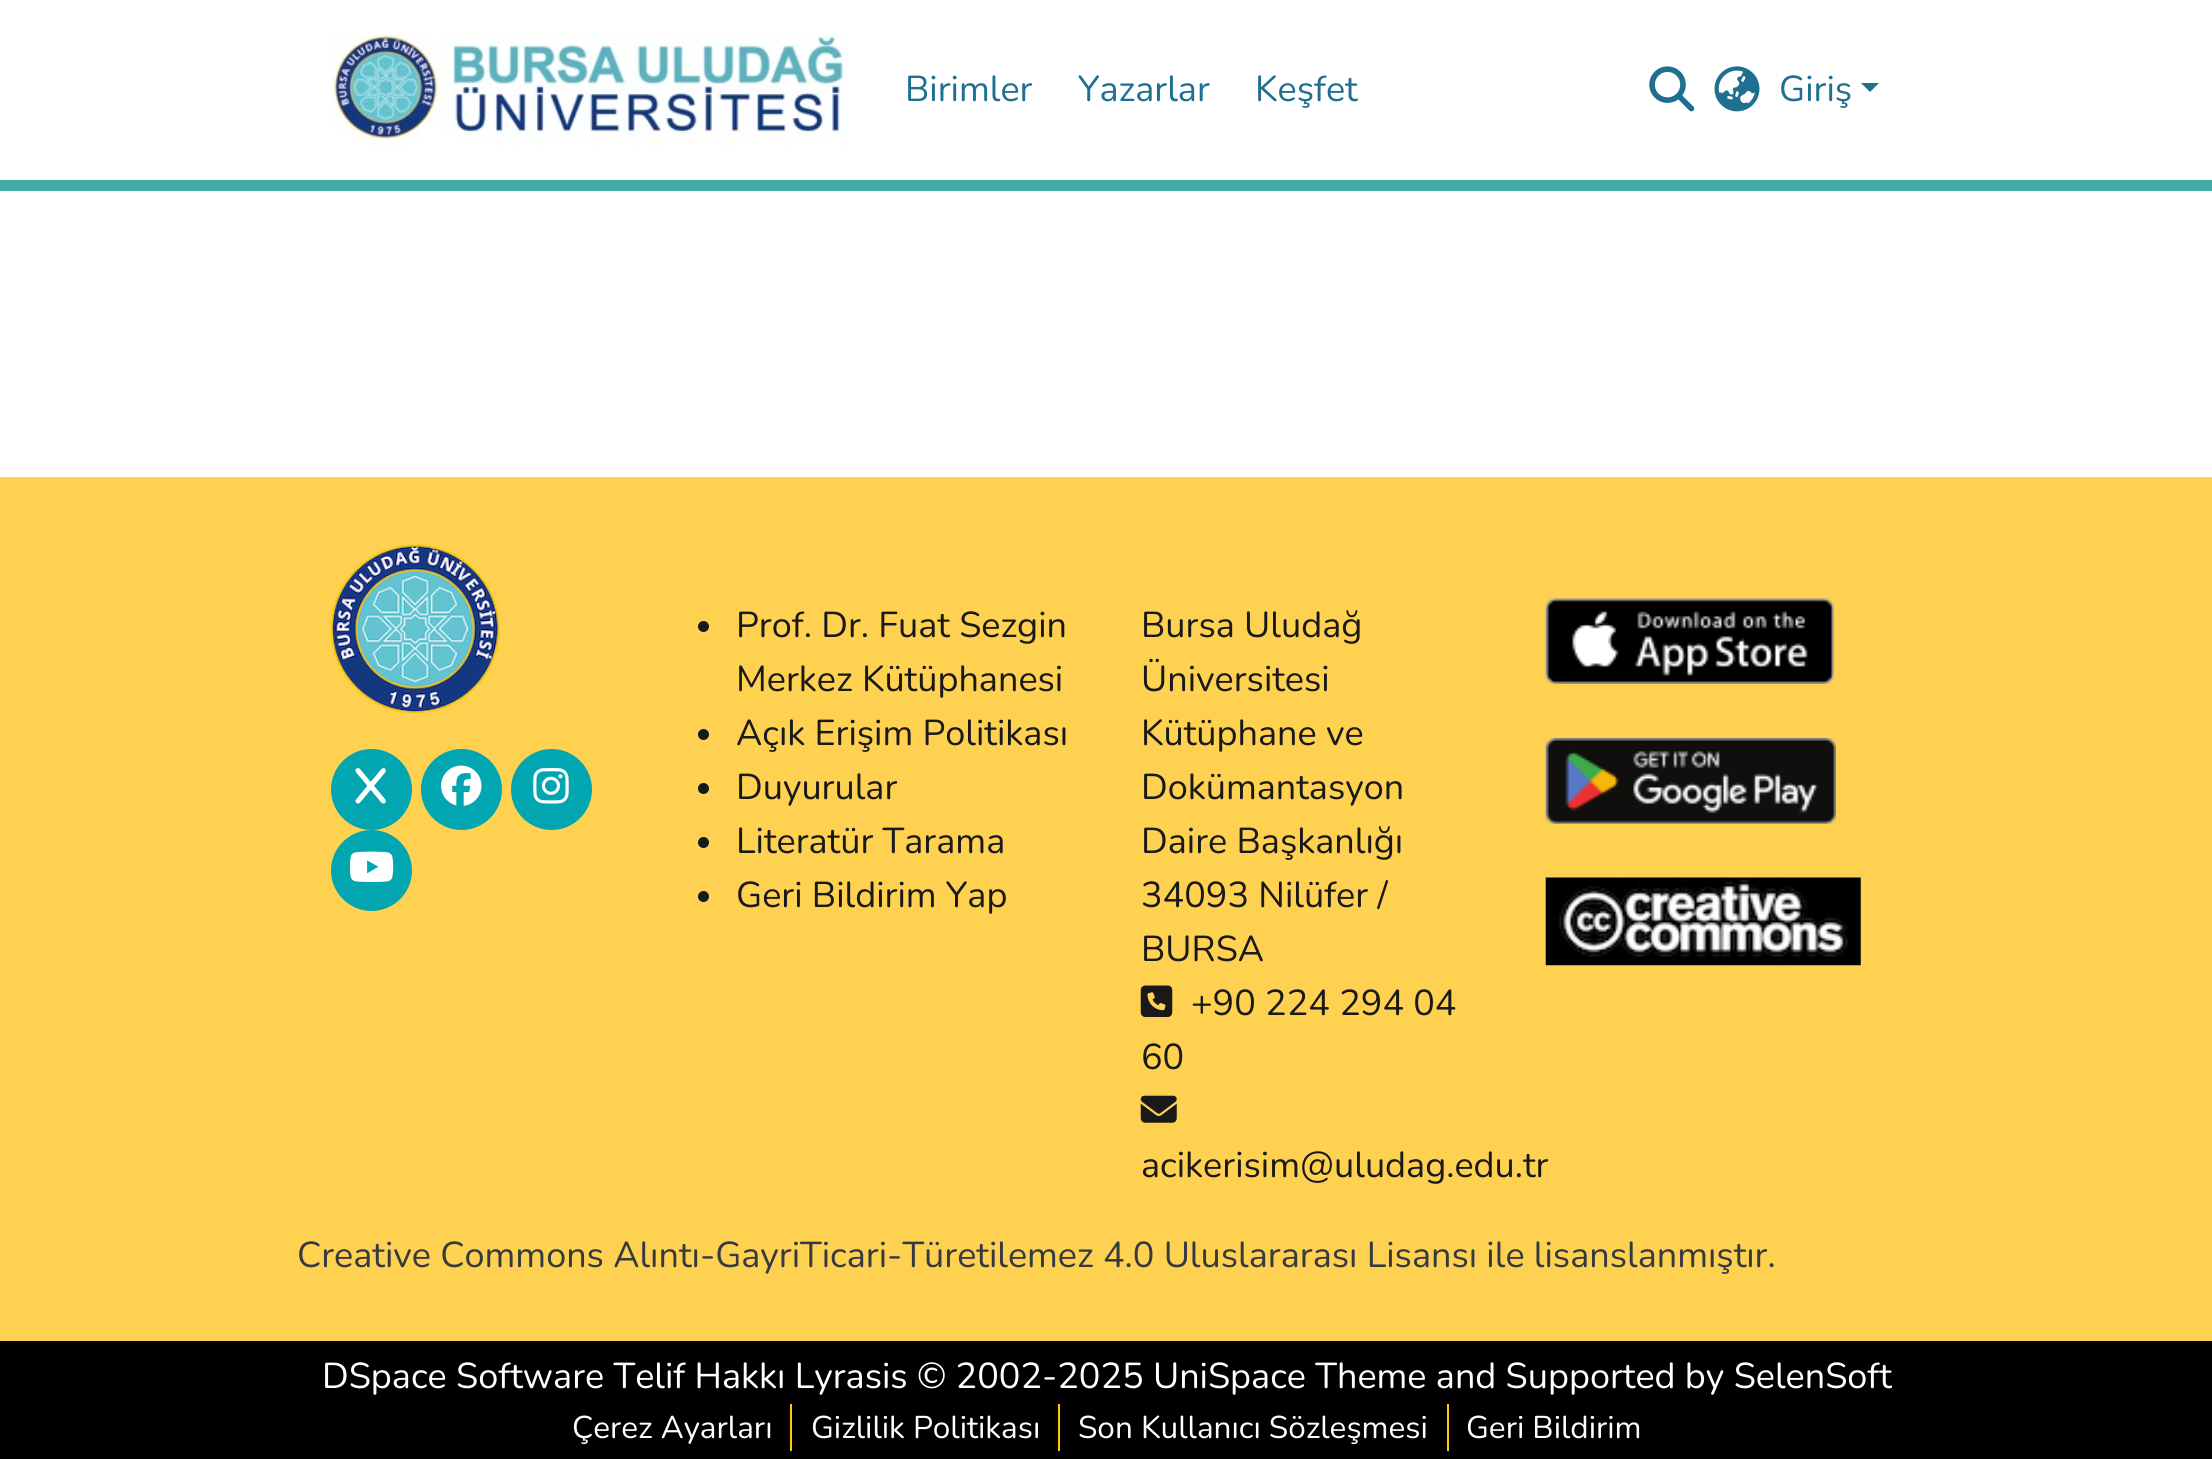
#include <cairo.h>
#include <math.h>
#include <stddef.h>

static cairo_t *c;
static void C(unsigned color){cairo_set_source_rgb(c, (color >> 16) / 255.0, (color >> 8 & 255) / 255.0, (color & 255) / 255.0);}
static void F(const char *family, double size, int italic, int bold){cairo_select_font_face(c, family, italic ? CAIRO_FONT_SLANT_ITALIC : CAIRO_FONT_SLANT_NORMAL,bold ? CAIRO_FONT_WEIGHT_BOLD : CAIRO_FONT_WEIGHT_NORMAL);cairo_set_font_size(c, size);}
static void T(double x, double y, const char *s){cairo_move_to(c, x, y);cairo_show_text(c, s);}
static void R(double x, double y, double w, double h){cairo_rectangle(c, x, y, w, h);cairo_fill(c);}
static void I(const char *path, double x, double y, double w, double h){cairo_surface_t *image = cairo_image_surface_create_from_png(path);cairo_save(c);cairo_set_source_surface(c, image, x, y);cairo_rectangle(c, x, y, w, h);cairo_fill(c);cairo_restore(c);cairo_surface_destroy(image);}
int main(void) {
cairo_surface_t *surface = cairo_image_surface_create(CAIRO_FORMAT_RGB24, 2212, 1459);
c = cairo_create(surface);
cairo_font_options_t *options = cairo_font_options_create();
cairo_font_options_set_hint_metrics(options, CAIRO_HINT_METRICS_OFF);
cairo_font_options_set_hint_style(options, CAIRO_HINT_STYLE_NONE);
cairo_set_font_options(c, options);
cairo_set_miter_limit(c, 4);
C(0xffffff);
cairo_paint(c);
C(0x44aaa6);
R(0,180,2212,11);
I("1.png",330,33,518,113);
F("Nunito",36,0,0);
C(0x1e6f90);
T(905,101,"Birimler");
T(1078,101,"Yazarlar");
T(1255,101,"Keşfet");
I("2.png",1649,66,46,46);
I("3.png",1714,66,46,46);
T(1779,101,"Giriş");
cairo_new_path(c);
cairo_move_to(c,1861,83);
cairo_line_to(c,1879,83);
cairo_line_to(c,1870,92);
cairo_close_path(c);
cairo_fill(c);
C(0x000000);
R(0,1341,2212,118);
C(0xffd150);
R(0,477,2212,864);
I("4.png",330,544,170,170);
C(0x01a6b1);
cairo_arc(c,371.5,789.5,40.5,0,2 * M_PI);
cairo_fill(c);
I("5.png",355,768,31,36);
cairo_arc(c,461.5,789.5,40.5,0,2 * M_PI);
cairo_fill(c);
I("6.png",441,765,41,41);
cairo_arc(c,551.5,789.5,40.5,0,2 * M_PI);
cairo_fill(c);
I("7.png",533,768,36,36);
cairo_arc(c,371.5,870.5,40.5,0,2 * M_PI);
cairo_fill(c);
I("8.png",349,851,45,31);
C(0x191919);
cairo_arc(c,703.5,626.5,5.5,0,2 * M_PI);
cairo_fill(c);
T(736,637,"Prof. Dr. Fuat Sezgin");
T(736,691,"Merkez Kütüphanesi");
cairo_new_path(c);
cairo_arc(c,703.5,734.5,5.5,0,2 * M_PI);
cairo_fill(c);
T(736,745,"Açık Erişim Politikası");
cairo_new_path(c);
cairo_arc(c,703.5,788.5,5.5,0,2 * M_PI);
cairo_fill(c);
T(736,799,"Duyurular");
cairo_new_path(c);
cairo_arc(c,703.5,842.5,5.5,0,2 * M_PI);
cairo_fill(c);
T(736,853,"Literatür Tarama");
cairo_new_path(c);
cairo_arc(c,703.5,896.5,5.5,0,2 * M_PI);
cairo_fill(c);
T(736,907,"Geri Bildirim Yap");
T(1141,637,"Bursa Uludağ");
T(1141,691,"Üniversitesi");
T(1141,745,"Kütüphane ve");
T(1141,799,"Dokümantasyon");
T(1141,853,"Daire Başkanlığı");
T(1141,907,"34093 Nilüfer /");
T(1141,961,"BURSA");
I("9.png",1140,985,33,32);
T(1191,1015,"+90 224 294 04");
T(1141,1069,"60");
I("10.png",1140,1095,37,28);
T(1141,1177,"acikerisim@uludag.edu.tr");
I("11.png",1545,598,289,86);
I("12.png",1545,738,291,86);
I("13.png",1545,877,316,89);
C(0x343a40);
T(297,1267,"Creative Commons Alıntı-GayriTicari-Türetilemez 4.0 Uluslararası Lisansı ile lisanslanmıştır.");
C(0xffffff);
T(322,1388,"DSpace Software Telif Hakkı Lyrasis © 2002-2025 UniSpace Theme and Supported by SelenSoft");
F("Nunito",31.5,0,0);
T(572,1438,"Çerez Ayarları");
C(0xffcc00);
R(790,1404,2,47);
C(0xffffff);
T(811,1438,"Gizlilik Politikası");
C(0xffcc00);
R(1058,1404,2,47);
C(0xffffff);
T(1078,1438,"Son Kullanıcı Sözleşmesi");
C(0xffcc00);
R(1447,1404,2,47);
C(0xffffff);
T(1466,1438,"Geri Bildirim");
cairo_surface_write_to_png(surface, "o.png");
cairo_font_options_destroy(options);
cairo_destroy(c);
cairo_surface_destroy(surface);
return 0;
}
